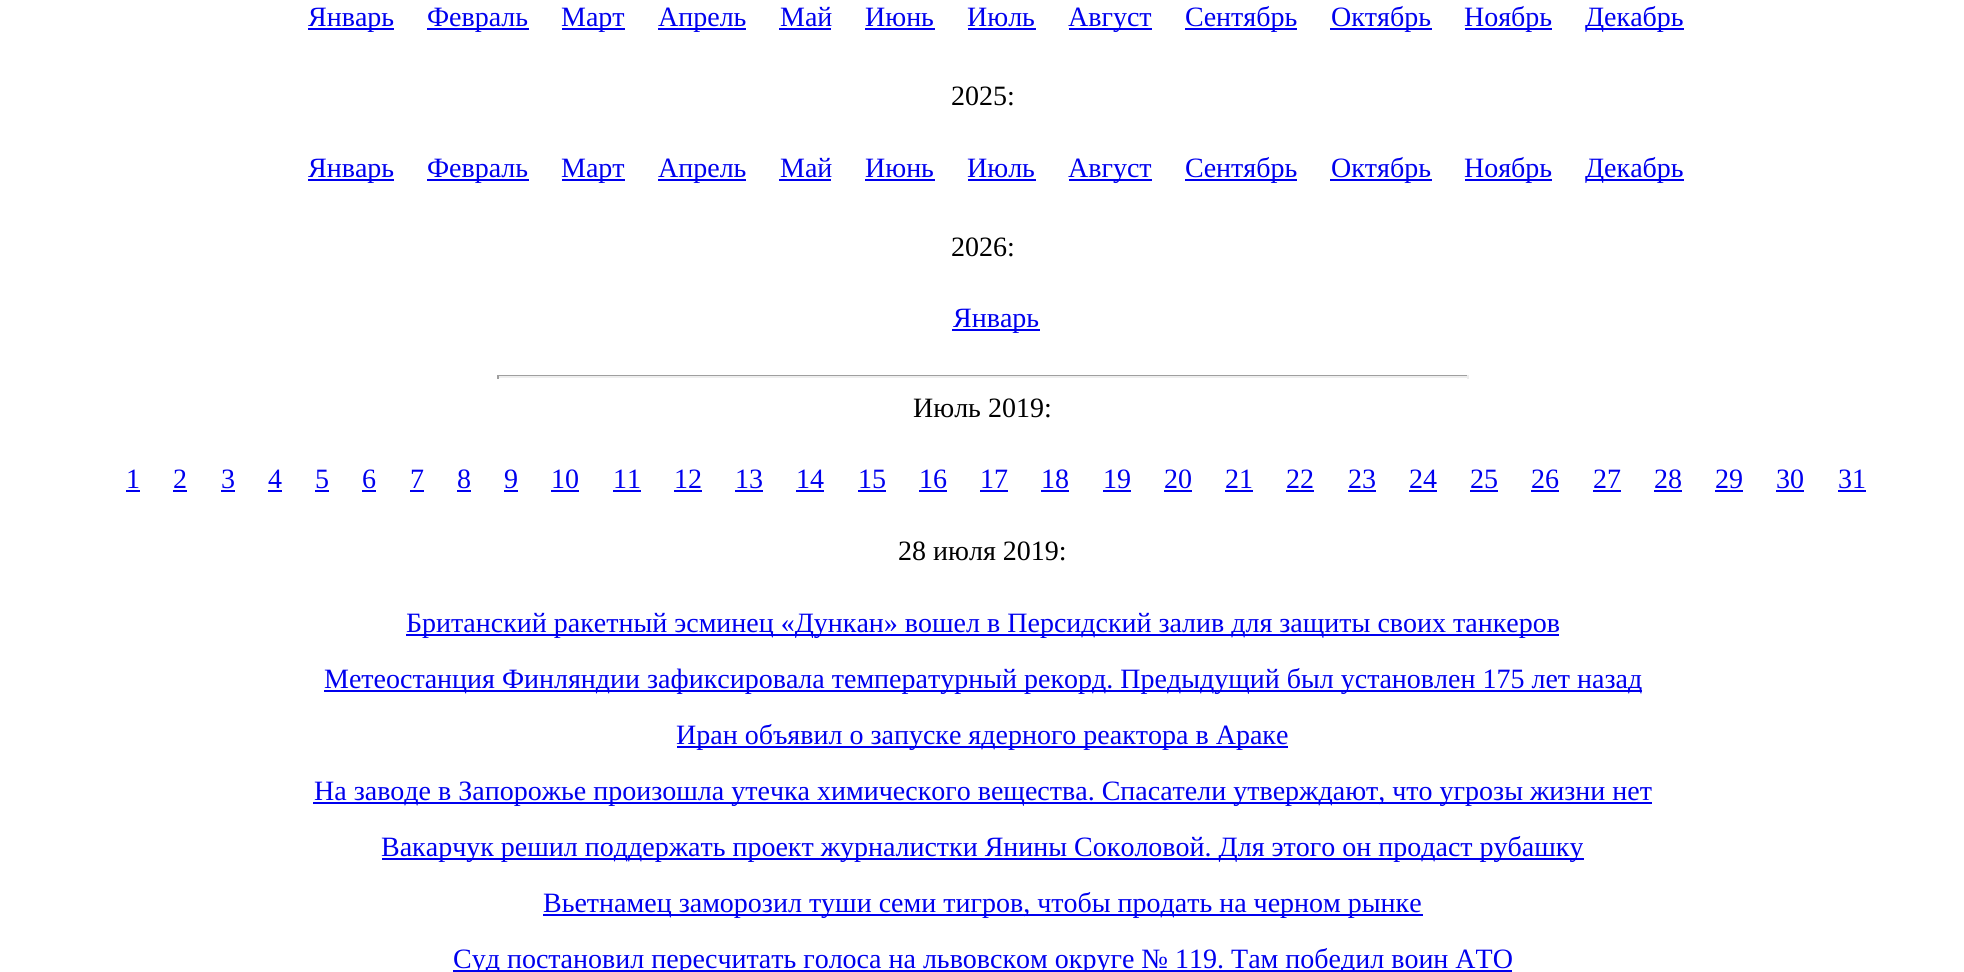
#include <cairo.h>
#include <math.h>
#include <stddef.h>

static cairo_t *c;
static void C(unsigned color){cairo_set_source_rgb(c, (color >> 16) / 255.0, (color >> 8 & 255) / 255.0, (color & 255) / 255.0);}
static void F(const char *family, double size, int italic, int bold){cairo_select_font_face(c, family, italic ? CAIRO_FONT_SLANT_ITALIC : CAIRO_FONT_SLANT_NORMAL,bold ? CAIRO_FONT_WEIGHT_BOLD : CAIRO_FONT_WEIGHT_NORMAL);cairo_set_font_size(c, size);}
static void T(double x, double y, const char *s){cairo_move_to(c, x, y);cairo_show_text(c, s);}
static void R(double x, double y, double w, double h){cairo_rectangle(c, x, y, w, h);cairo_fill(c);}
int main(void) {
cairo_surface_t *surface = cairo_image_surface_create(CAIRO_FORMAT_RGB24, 1964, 972);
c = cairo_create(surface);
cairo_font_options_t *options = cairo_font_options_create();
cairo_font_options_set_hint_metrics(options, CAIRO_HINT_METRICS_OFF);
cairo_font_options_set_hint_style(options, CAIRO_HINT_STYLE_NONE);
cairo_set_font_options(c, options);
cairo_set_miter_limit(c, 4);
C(0xffffff);
cairo_paint(c);
C(0x0000ee);
R(308,28,86,2);
F("Liberation Serif",28,0,0);
T(308,26,"Январь");
R(427,28,102,2);
T(427,26,"Февраль");
R(562,28,63,2);
T(561,26,"Март");
R(658,28,88,2);
T(658,26,"Апрель");
T(780,26,"Май");
R(779,28,52,2);
T(865,26,"Июнь");
R(865,28,70,2);
T(967,26,"Июль");
R(968,28,68,2);
R(1069,28,83,2);
T(1068,26,"Август");
R(1185,28,112,2);
T(1185,26,"Сентябрь");
R(1330,28,102,2);
T(1331,26,"Октябрь");
R(1465,28,87,2);
T(1464,26,"Ноябрь");
R(1586,28,98,2);
T(1585,26,"Декабрь");
C(0x000000);
T(951,105,"2025:");
C(0x0000ee);
R(308,179,86,2);
T(308,177,"Январь");
R(427,179,102,2);
T(427,177,"Февраль");
R(562,179,63,2);
T(561,177,"Март");
R(658,179,88,2);
T(658,177,"Апрель");
T(780,177,"Май");
R(779,179,52,2);
T(865,177,"Июнь");
R(865,179,70,2);
T(967,177,"Июль");
R(968,179,68,2);
R(1069,179,83,2);
T(1068,177,"Август");
R(1185,179,112,2);
T(1185,177,"Сентябрь");
R(1330,179,102,2);
T(1331,177,"Октябрь");
R(1465,179,87,2);
T(1464,177,"Ноябрь");
R(1586,179,98,2);
T(1585,177,"Декабрь");
C(0x000000);
T(951,256,"2026:");
C(0x0000ee);
R(952,329,88,2);
T(953,327,"Январь");
C(0x9f9f9f);
R(497,375,971,1);
C(0xeeeeee);
R(1467,375,2,4);
R(497,376,971,2);
C(0x9f9f9f);
R(497,375,2,4);
C(0x000000);
T(913,417,"Июль 2019:");
C(0x0000ee);
T(126,488,"1");
R(126,490,14,2);
T(173,488,"2");
R(173,490,14,2);
T(221,488,"3");
R(221,490,14,2);
T(268,488,"4");
R(268,490,14,2);
T(315,488,"5");
R(315,490,14,2);
T(362,488,"6");
R(362,490,14,2);
T(410,488,"7");
R(410,490,14,2);
T(457,488,"8");
R(457,490,14,2);
T(504,488,"9");
R(504,490,14,2);
T(551,488,"10");
R(551,490,28,2);
T(613,488,"11");
R(613,490,28,2);
T(674,488,"12");
R(674,490,28,2);
T(735,488,"13");
R(735,490,28,2);
T(796,488,"14");
R(796,490,28,2);
T(858,488,"15");
R(858,490,28,2);
T(919,488,"16");
R(919,490,28,2);
T(980,488,"17");
R(980,490,28,2);
T(1041,488,"18");
R(1041,490,28,2);
T(1103,488,"19");
R(1103,490,28,2);
T(1164,488,"20");
R(1164,490,28,2);
T(1225,488,"21");
R(1225,490,28,2);
T(1286,488,"22");
R(1286,490,28,2);
T(1348,488,"23");
R(1348,490,28,2);
T(1409,488,"24");
R(1409,490,28,2);
T(1470,488,"25");
R(1470,490,28,2);
T(1531,488,"26");
R(1531,490,28,2);
T(1593,488,"27");
R(1593,490,28,2);
T(1654,488,"28");
R(1654,490,28,2);
T(1715,488,"29");
R(1715,490,28,2);
T(1776,488,"30");
R(1776,490,28,2);
T(1838,488,"31");
R(1838,490,28,2);
C(0x000000);
T(898,560,"28 июля 2019:");
C(0x0000ee);
R(406,634,1153,2);
T(406,632,"Британский ракетный эсминец «Дункан» вошел в Персидский залив для защиты своих танкеров");
R(324,690,1318,2);
T(324,688,"Метеостанция Финляндии зафиксировала температурный рекорд. Предыдущий был установлен 175 лет назад");
R(677,746,611,2);
T(676,744,"Иран объявил о запуске ядерного реактора в Араке");
R(313,802,1339,2);
T(314,800,"На заводе в Запорожье произошла утечка химического вещества. Спасатели утверждают, что угрозы жизни нет");
R(382,858,1202,2);
T(381,856,"Вакарчук решил поддержать проект журналистки Янины Соколовой. Для этого он продаст рубашку");
R(543,914,880,2);
T(543,912,"Вьетнамец заморозил туши семи тигров, чтобы продать на черном рынке");
R(453,970,1059,2);
T(453,968,"Суд постановил пересчитать голоса на львовском округе № 119. Там победил воин АТО");
cairo_surface_write_to_png(surface, "o.png");
cairo_font_options_destroy(options);
cairo_destroy(c);
cairo_surface_destroy(surface);
return 0;
}
